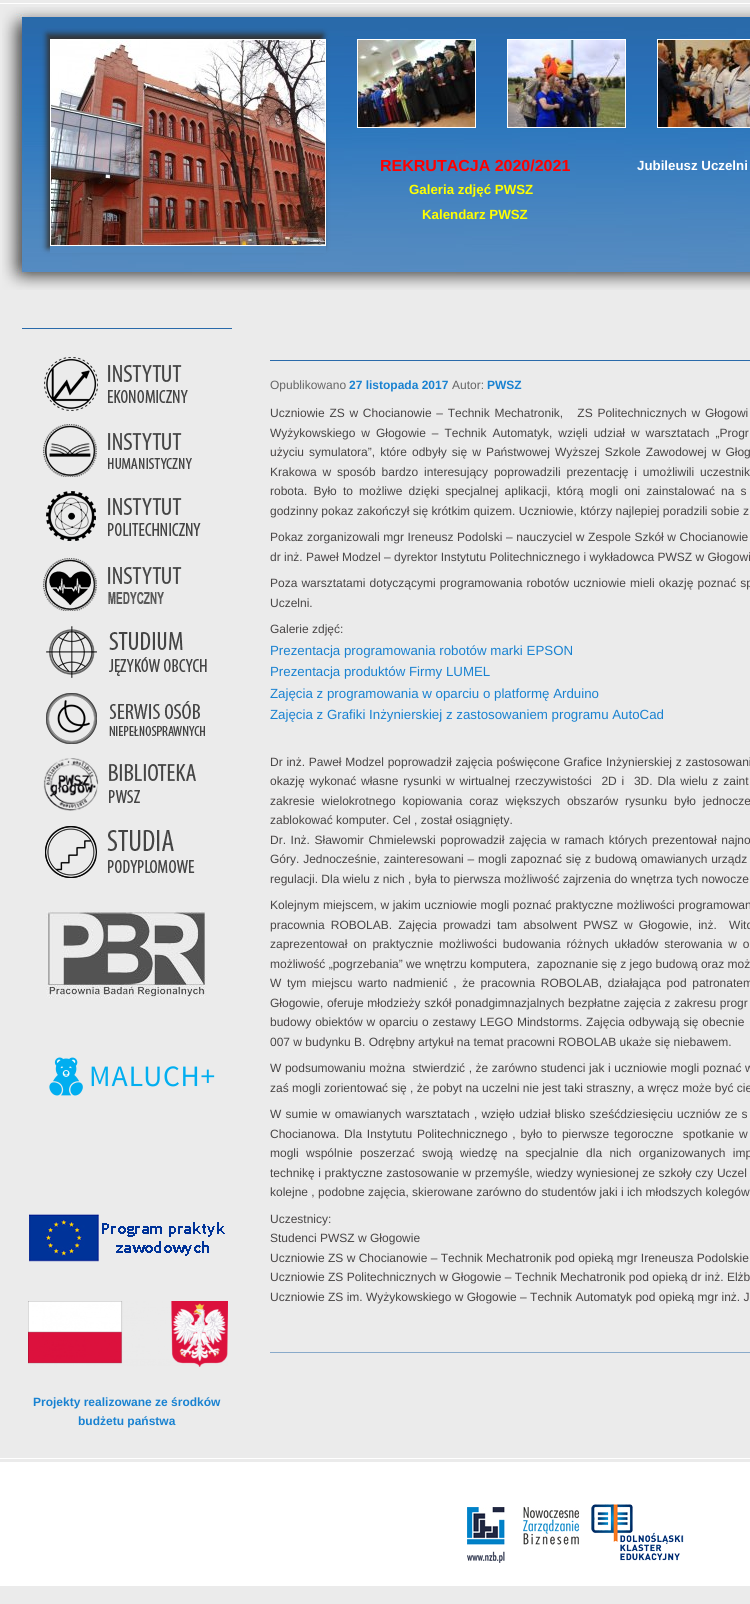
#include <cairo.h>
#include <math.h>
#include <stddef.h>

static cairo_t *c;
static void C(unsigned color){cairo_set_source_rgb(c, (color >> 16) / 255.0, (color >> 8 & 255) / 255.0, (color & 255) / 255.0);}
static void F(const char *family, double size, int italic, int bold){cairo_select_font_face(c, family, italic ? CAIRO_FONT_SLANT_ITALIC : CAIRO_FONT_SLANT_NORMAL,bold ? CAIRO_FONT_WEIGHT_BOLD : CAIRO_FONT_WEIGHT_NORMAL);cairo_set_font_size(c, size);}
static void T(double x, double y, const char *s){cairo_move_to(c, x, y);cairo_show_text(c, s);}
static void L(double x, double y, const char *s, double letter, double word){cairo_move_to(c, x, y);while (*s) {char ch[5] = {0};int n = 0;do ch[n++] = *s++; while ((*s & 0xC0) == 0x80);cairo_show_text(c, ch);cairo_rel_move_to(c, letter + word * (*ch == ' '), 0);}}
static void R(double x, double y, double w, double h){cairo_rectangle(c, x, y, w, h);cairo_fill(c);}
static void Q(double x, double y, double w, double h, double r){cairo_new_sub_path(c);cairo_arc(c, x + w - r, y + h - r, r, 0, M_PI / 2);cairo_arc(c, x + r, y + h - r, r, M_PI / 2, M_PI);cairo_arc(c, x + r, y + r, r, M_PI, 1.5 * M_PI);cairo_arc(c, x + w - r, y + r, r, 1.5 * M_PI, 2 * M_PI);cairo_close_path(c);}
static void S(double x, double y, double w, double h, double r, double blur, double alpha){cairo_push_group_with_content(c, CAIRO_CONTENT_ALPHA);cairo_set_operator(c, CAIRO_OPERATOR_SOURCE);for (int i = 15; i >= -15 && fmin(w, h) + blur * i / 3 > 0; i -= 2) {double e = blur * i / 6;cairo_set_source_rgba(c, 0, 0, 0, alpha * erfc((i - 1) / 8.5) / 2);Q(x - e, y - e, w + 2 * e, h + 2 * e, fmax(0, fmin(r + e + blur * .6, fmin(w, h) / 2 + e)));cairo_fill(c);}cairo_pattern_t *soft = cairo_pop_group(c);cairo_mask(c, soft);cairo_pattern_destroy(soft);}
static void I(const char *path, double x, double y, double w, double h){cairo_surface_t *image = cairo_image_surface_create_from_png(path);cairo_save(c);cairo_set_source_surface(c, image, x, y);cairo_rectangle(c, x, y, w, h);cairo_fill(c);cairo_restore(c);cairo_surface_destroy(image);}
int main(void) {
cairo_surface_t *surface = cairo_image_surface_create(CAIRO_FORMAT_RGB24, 750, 1604);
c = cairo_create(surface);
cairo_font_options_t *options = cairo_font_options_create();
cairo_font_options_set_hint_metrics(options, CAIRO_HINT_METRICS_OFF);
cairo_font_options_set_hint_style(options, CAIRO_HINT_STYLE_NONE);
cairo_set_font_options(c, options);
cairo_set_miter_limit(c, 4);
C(0xebebeb);
cairo_paint(c);
C(0xffffff);
R(0,3,750,1);
R(0,1458,750,1);
I("1.png",2,7,748,283);
cairo_save(c);
cairo_set_fill_rule(c,CAIRO_FILL_RULE_EVEN_ODD);
cairo_new_path(c);
cairo_move_to(c,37,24);
cairo_line_to(c,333,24);
cairo_line_to(c,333,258);
cairo_line_to(c,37,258);
cairo_close_path(c);
cairo_move_to(c,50,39);
cairo_line_to(c,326,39);
cairo_line_to(c,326,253);
cairo_line_to(c,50,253);
cairo_close_path(c);
cairo_clip(c);
C(0x323232);
S(47,34,276,214,0,3,1);
cairo_restore(c);
cairo_rectangle(c,50.5,39.5,275,206);
cairo_set_line_width(c,1);
cairo_stroke(c);
I("2.png",51,40,274,205);
cairo_rectangle(c,357.5,39.5,118,88);
cairo_stroke(c);
I("3.png",358,40,117,87);
cairo_rectangle(c,507.5,39.5,118,88);
cairo_stroke(c);
I("4.png",508,40,117,87);
cairo_rectangle(c,657.5,39.5,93,88);
cairo_stroke(c);
I("5.png",658,40,92,87);
F("Liberation Sans",16,0,1);
C(0xff0000);
T(380,171,"REKRUTACJA 2020/2021");
F("Liberation Sans",13.3,0,1);
C(0xffffff);
T(637,170,"Jubileusz Uczelni");
C(0xffff00);
T(409,194,"Galeria zdjęć PWSZ");
T(422,219,"Kalendarz PWSZ");
C(0x89aaca);
R(270,1352,480,1);
C(0x296aaa);
R(270,360,480,1);
F("Liberation Sans",12,0,0);
C(0x666666);
T(270,389,"Opublikowano");
F("Liberation Sans",12,0,1);
C(0x1982d1);
T(349,389,"27 listopada 2017");
F("Liberation Sans",12,0,0);
C(0x666666);
T(452,389,"Autor:");
F("Liberation Sans",12,0,1);
C(0x1982d1);
T(487,389,"PWSZ");
F("Liberation Sans",12,0,0);
C(0x484545);
L(270,417,"Uczniowie ZS w Chocianowie – Technik Mechatronik,   ZS Politechnicznych w Głogowi",0,1.4);
L(270,437,"Wyżykowskiego w Głogowie – Technik Automatyk, wzięli udział w warsztatach „Progr",0,2.6);
L(270,456,"użyciu symulatora”, które odbyły się w Państwowej Wyższej Szkole Zawodowej w Głog",0,1.75);
L(270,476,"Krakowa w sposób bardzo interesujący poprowadzili prezentację i umożliwili uczestnik",0,2.5);
L(270,495,"robota. Było to możliwe dzięki specjalnej aplikacji, którą mogli oni zainstalować na s",0,2.75);
T(270,515,"godzinny pokaz zakończył się krótkim quizem. Uczniowie, którzy najlepiej poradzili sobie z");
L(270,541,"Pokaz zorganizowali mgr Ireneusz Podolski – nauczyciel w Zespole Szkół w Chocianowie",0,.25);
T(270,561,"dr inż. Paweł Modzel – dyrektor Instytutu Politechnicznego i wykładowca PWSZ w Głogowi");
L(270,587,"Poza warsztatami dotyczącymi programowania robotów uczniowie mieli okazję poznać sp",0,.75);
T(270,607,"Uczelni.");
T(270,633,"Galerie zdjęć:");
F("Liberation Sans",13.3,0,0);
C(0x1982d1);
T(270,655,"Prezentacja programowania robotów marki EPSON");
T(270,676,"Prezentacja produktów Firmy LUMEL");
T(270,698,"Zajęcia z programowania w oparciu o platformę Arduino");
T(270,719,"Zajęcia z Grafiki Inżynierskiej z zastosowaniem programu AutoCad");
F("Liberation Sans",12,0,0);
C(0x484545);
L(270,766,"Dr inż. Paweł Modzel poprowadził zajęcia poświęcone Grafice Inżynierskiej z zastosowani",0,.4);
L(270,785,"okazję wykonać własne rysunki w wirtualnej rzeczywistości  2D i  3D. Dla wielu z zaint",0,1.5);
L(270,805,"zakresie wielokrotnego kopiowania coraz większych obszarów rysunku było jednocze",0,3.5);
T(270,824,"zablokować komputer. Cel , został osiągnięty.");
L(270,844,"Dr. Inż. Sławomir Chmielewski poprowadził zajęcia w ramach których prezentował najno",0,1.25);
L(270,863,"Góry. Jednocześnie, zainteresowani – mogli zapoznać się z budową omawianych urządz",0,.5);
T(270,883,"regulacji. Dla wielu z nich , była to pierwsza możliwość zajrzenia do wnętrza tych nowocze");
L(270,909,"Kolejnym miejscem, w jakim uczniowie mogli poznać praktyczne możliwości programowan",0,.25);
L(270,929,"pracownia ROBOLAB. Zajęcia prowadzi tam absolwent PWSZ w Głogowie, inż.  Wito",0,2.75);
L(270,948,"zaprezentował on praktycznie możliwości budowania różnych układów sterowania w o",0,2.5);
T(270,968,"możliwość „pogrzebania” we wnętrzu komputera,  zapoznanie się z jego budową oraz moż");
L(270,987,"W tym miejscu warto nadmienić , że pracownia ROBOLAB, działająca pod patronatem",0,2.25);
L(270,1007,"Głogowie, oferuje młodzieży szkół ponadgimnazjalnych bezpłatne zajęcia z zakresu progr",0,.25);
L(270,1026,"budowy obiektów w oparciu o zestawy LEGO Mindstorms. Zajęcia odbywają się obecnie",0,.5);
T(270,1046,"007 w budynku B. Odrębny artykuł na temat pracowni ROBOLAB ukaże się niebawem.");
L(270,1072,"W podsumowaniu można  stwierdzić , że zarówno studenci jak i uczniowie mogli poznać w",0,.25);
T(270,1092,"zaś mogli zorientować się , że pobyt na uczelni nie jest taki straszny, a wręcz może być cie");
L(270,1118,"W sumie w omawianych warsztatach , wzięło udział blisko sześćdziesięciu uczniów ze s",0,.9);
L(270,1138,"Chocianowa. Dla Instytutu Politechnicznego , było to pierwsze tegoroczne  spotkanie w",0,1.4);
L(270,1157,"mogli wspólnie poszerzać swoją wiedzę na specjalnie dla nich organizowanych imp",0,4);
L(270,1177,"technikę i praktyczne zastosowanie w przemyśle, wiedzy wyniesionej ze szkoły czy Uczel",0,.25);
T(270,1196,"kolejne , podobne zajęcia, skierowane zarówno do studentów jaki i ich młodszych kolegów");
T(270,1223,"Uczestnicy:");
T(270,1242,"Studenci PWSZ w Głogowie");
T(270,1262,"Uczniowie ZS w Chocianowie – Technik Mechatronik pod opieką mgr Ireneusza Podolskie");
T(270,1281,"Uczniowie ZS Politechnicznych w Głogowie – Technik Mechatronik pod opieką dr inż. Elżb");
T(270,1301,"Uczniowie ZS im. Wyżykowskiego w Głogowie – Technik Automatyk pod opieką mgr inż. J");
C(0x296aaa);
R(22,328,210,1);
I("6.png",44,357,144,54);
I("7.png",43,424,149,53);
I("8.png",46,491,155,50);
I("9.png",43,558,139,53);
I("10.png",46,626,161,52);
I("11.png",46,693,159,51);
I("12.png",43,758,153,53);
I("13.png",45,826,150,52);
I("14.png",46,911,160,87);
I("15.png",49,1057,166,39);
I("16.png",29,1214,196,48);
I("17.png",28,1301,200,66);
F("Liberation Sans",12,0,1);
C(0x1982d1);
T(33,1406,"Projekty realizowane ze środków");
T(78,1425,"budżetu państwa");
C(0xffffff);
R(0,1462,750,124);
I("18.png",467,1507,112,56);
I("19.png",591,1504,93,57);
cairo_surface_write_to_png(surface, "o.png");
cairo_font_options_destroy(options);
cairo_destroy(c);
cairo_surface_destroy(surface);
return 0;
}
